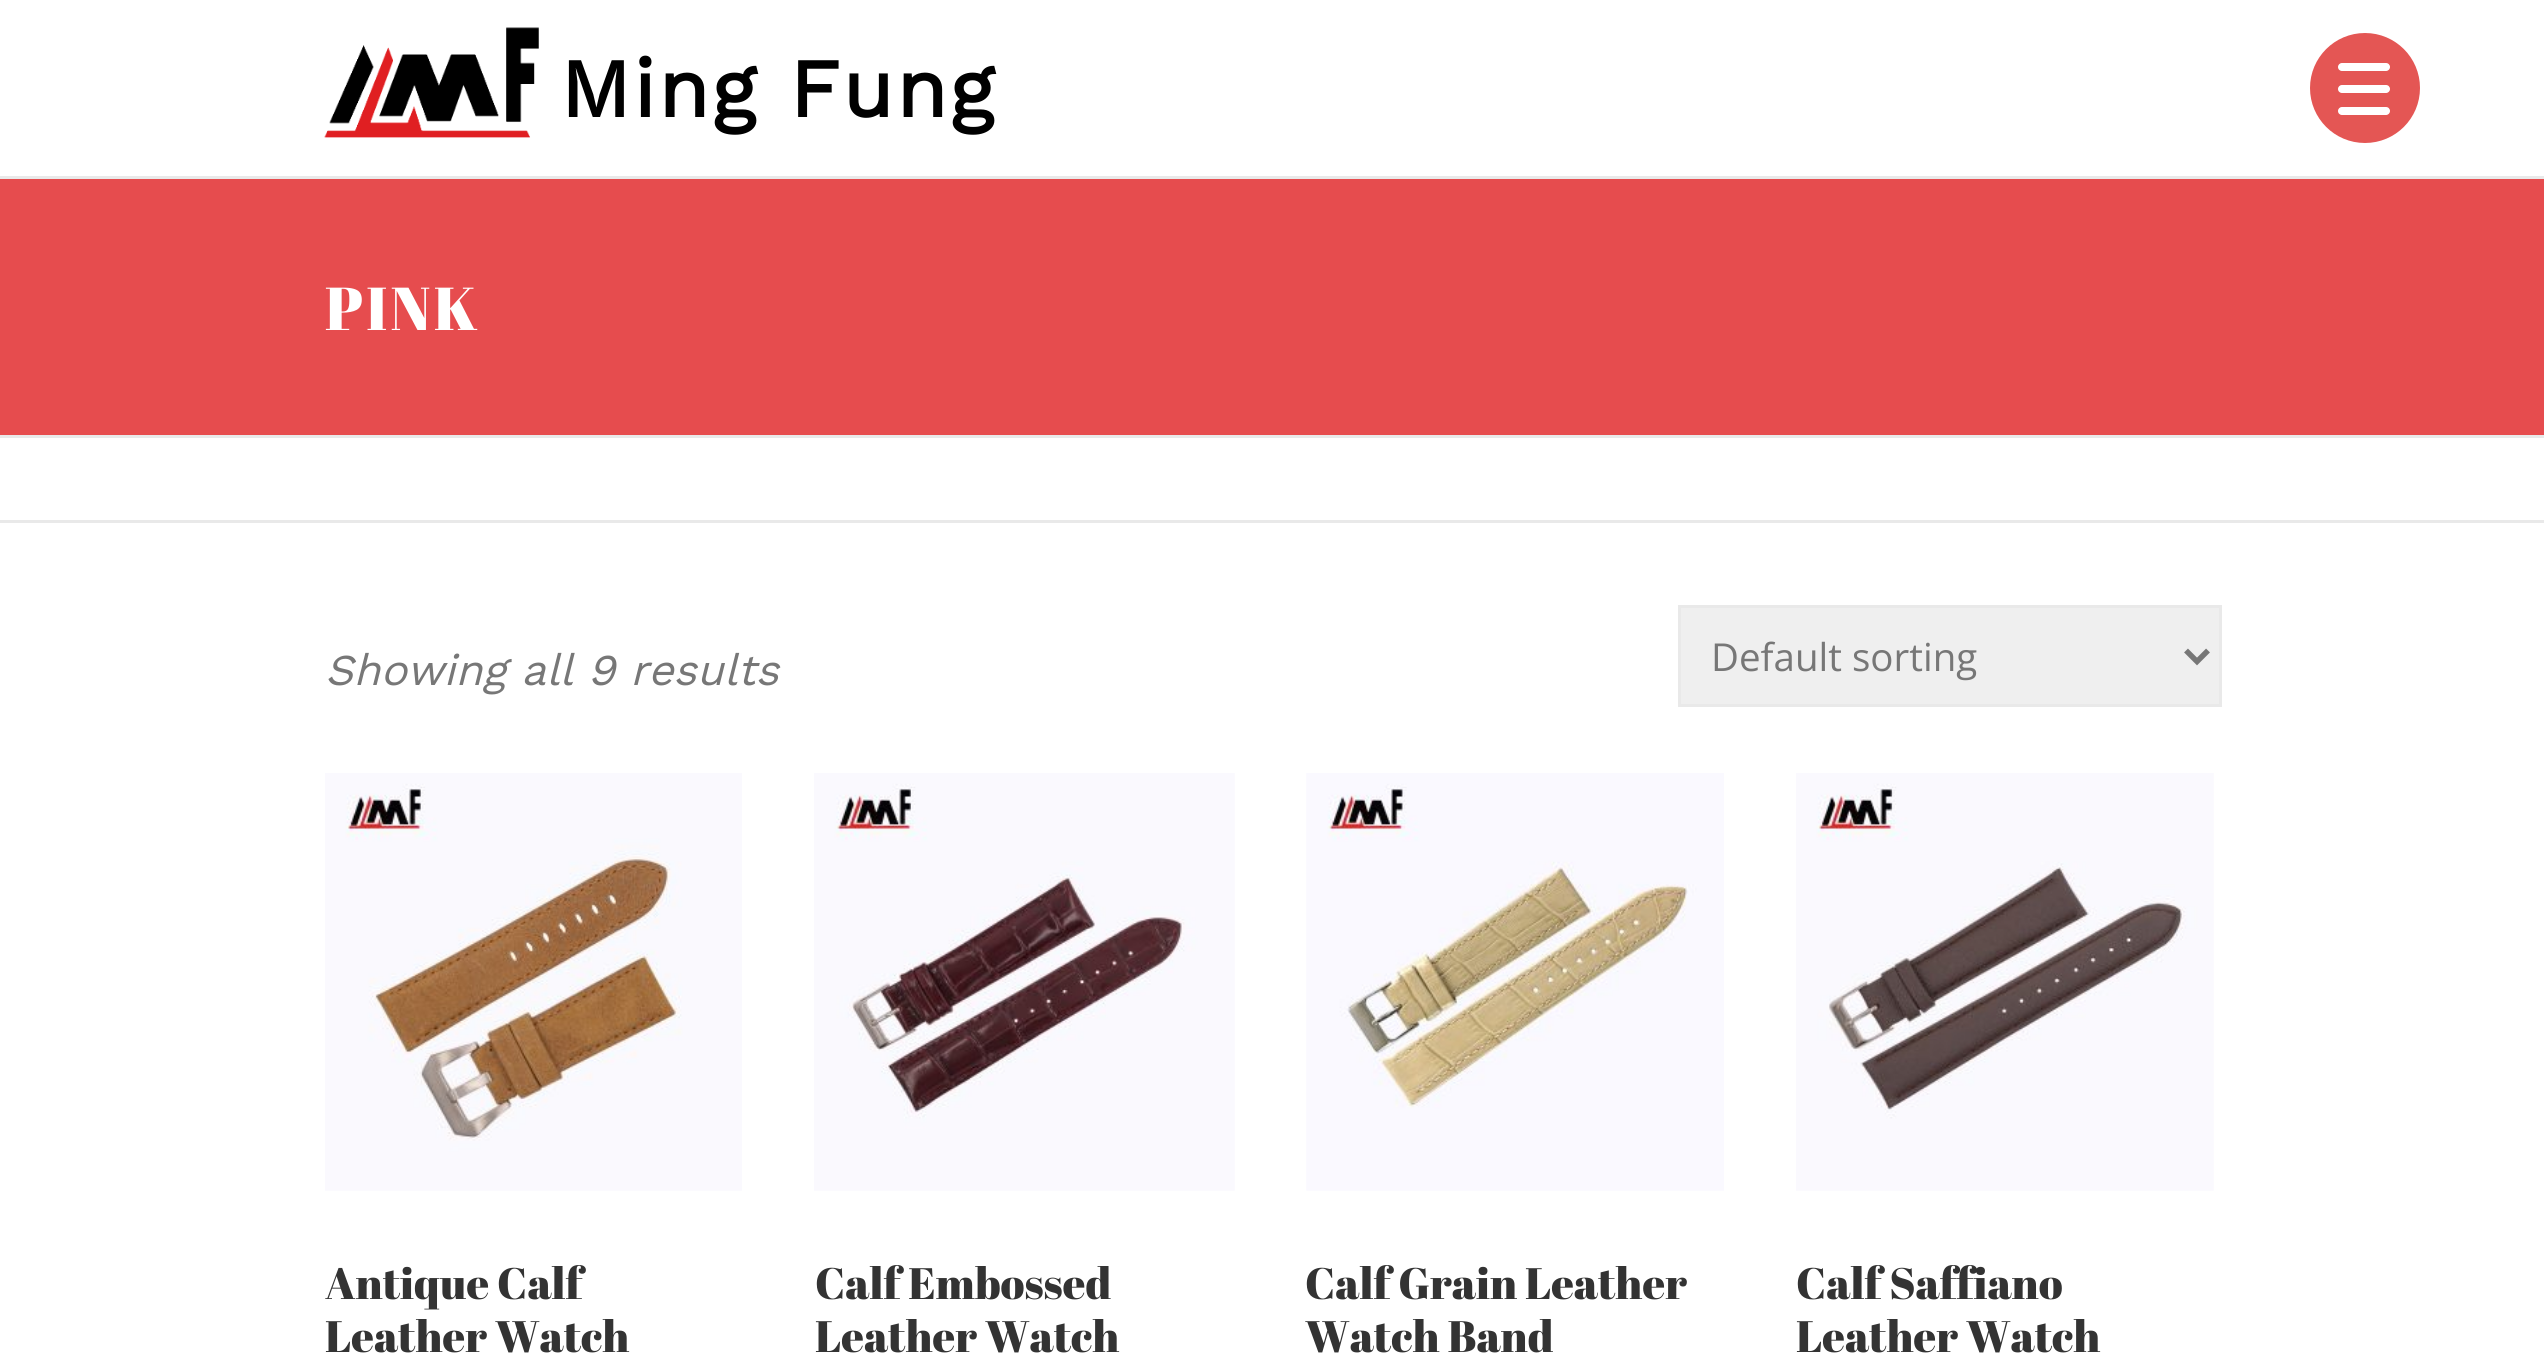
#include <cairo.h>
#include <math.h>
#include <stddef.h>

static cairo_t *c;
static void C(unsigned color){cairo_set_source_rgb(c, (color >> 16) / 255.0, (color >> 8 & 255) / 255.0, (color & 255) / 255.0);}
static void F(const char *family, double size, int italic, int bold){cairo_select_font_face(c, family, italic ? CAIRO_FONT_SLANT_ITALIC : CAIRO_FONT_SLANT_NORMAL,bold ? CAIRO_FONT_WEIGHT_BOLD : CAIRO_FONT_WEIGHT_NORMAL);cairo_set_font_size(c, size);}
static void T(double x, double y, const char *s){cairo_move_to(c, x, y);cairo_show_text(c, s);}
static void L(double x, double y, const char *s, double letter, double word){cairo_move_to(c, x, y);while (*s) {char ch[5] = {0};int n = 0;do ch[n++] = *s++; while ((*s & 0xC0) == 0x80);cairo_show_text(c, ch);cairo_rel_move_to(c, letter + word * (*ch == ' '), 0);}}
static void R(double x, double y, double w, double h){cairo_rectangle(c, x, y, w, h);cairo_fill(c);}
static void Q(double x, double y, double w, double h, double r){cairo_new_sub_path(c);cairo_arc(c, x + w - r, y + h - r, r, 0, M_PI / 2);cairo_arc(c, x + r, y + h - r, r, M_PI / 2, M_PI);cairo_arc(c, x + r, y + r, r, M_PI, 1.5 * M_PI);cairo_arc(c, x + w - r, y + r, r, 1.5 * M_PI, 2 * M_PI);cairo_close_path(c);}
static void I(const char *path, double x, double y, double w, double h){cairo_surface_t *image = cairo_image_surface_create_from_png(path);cairo_save(c);cairo_set_source_surface(c, image, x, y);cairo_rectangle(c, x, y, w, h);cairo_fill(c);cairo_restore(c);cairo_surface_destroy(image);}
int main(void) {
cairo_surface_t *surface = cairo_image_surface_create(CAIRO_FORMAT_RGB24, 2544, 1361);
c = cairo_create(surface);
cairo_font_options_t *options = cairo_font_options_create();
cairo_font_options_set_hint_metrics(options, CAIRO_HINT_METRICS_OFF);
cairo_font_options_set_hint_style(options, CAIRO_HINT_STYLE_NONE);
cairo_set_font_options(c, options);
cairo_set_miter_limit(c, 4);
C(0xffffff);
cairo_paint(c);
C(0xe64c4e);
R(0,179,2544,256);
I("1.png",324,27,215,111);
F("Work Sans",82.5,0,1);
C(0x000000);
L(560,117,"Ming Fung",2.75,0);
C(0xe9e9e9);
R(0,176,2544,3);
R(0,435,2544,3);
F("Abril Fatface",60.5,0,0);
C(0xffffff);
L(325,330,"PINK",2.75,0);
C(0xe9e9e9);
R(0,520,2544,3);
F("Work Sans",44,1,0);
C(0x777777);
T(325,685,"Showing all 9 results");
C(0xefefef);
cairo_rectangle(c,1679.5,606.5,541,99);
cairo_fill_preserve(c);
C(0xe9e9e9);
cairo_set_line_width(c,3);
cairo_stroke(c);
cairo_new_path(c);
cairo_move_to(c,2186,650.5);
cairo_line_to(c,2197,661.5);
cairo_line_to(c,2208,650.5);
C(0x777777);
cairo_set_line_width(c,5.5);
cairo_stroke(c);
F("Open Sans",38.5,0,0);
T(1711,671,"Default sorting");
I("2.png",325,773,417,418);
F("Abril Fatface",44,0,0);
C(0x333333);
T(325,1299,"Antique Calf");
T(325,1352,"Leather Watch");
I("3.png",814,773,421,418);
T(815,1299,"Calf Embossed");
T(815,1352,"Leather Watch");
I("4.png",1306,773,418,418);
T(1305,1299,"Calf Grain Leather");
T(1305,1352,"Watch Band");
I("5.png",1796,773,418,418);
T(1796,1299,"Calf Saffiano");
T(1796,1352,"Leather Watch");
C(0xe45654);
cairo_new_path(c);
cairo_arc(c,2365,88,55,0,2 * M_PI);
cairo_fill(c);
C(0xffffff);
Q(2338,85,52,8,4);
cairo_fill(c);
Q(2338,63,52,8,4);
cairo_fill(c);
Q(2338,107,52,8,4);
cairo_fill(c);
cairo_surface_write_to_png(surface, "o.png");
cairo_font_options_destroy(options);
cairo_destroy(c);
cairo_surface_destroy(surface);
return 0;
}
